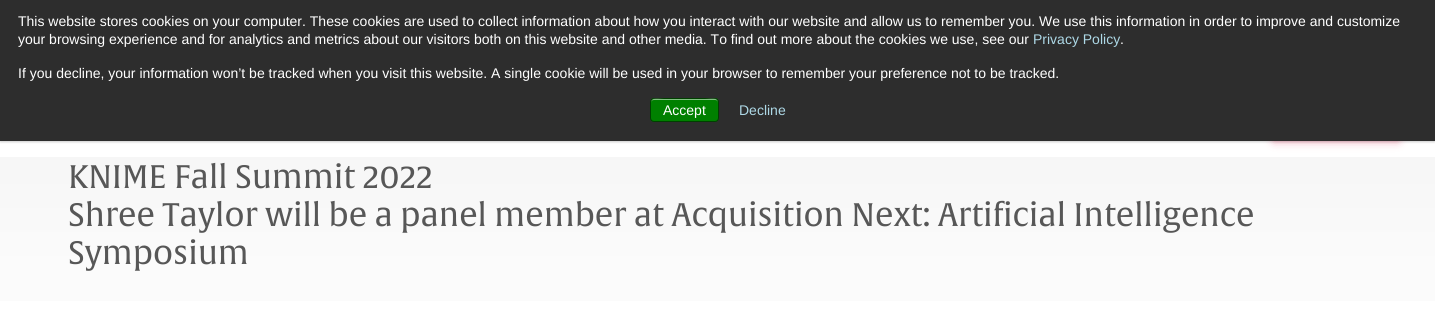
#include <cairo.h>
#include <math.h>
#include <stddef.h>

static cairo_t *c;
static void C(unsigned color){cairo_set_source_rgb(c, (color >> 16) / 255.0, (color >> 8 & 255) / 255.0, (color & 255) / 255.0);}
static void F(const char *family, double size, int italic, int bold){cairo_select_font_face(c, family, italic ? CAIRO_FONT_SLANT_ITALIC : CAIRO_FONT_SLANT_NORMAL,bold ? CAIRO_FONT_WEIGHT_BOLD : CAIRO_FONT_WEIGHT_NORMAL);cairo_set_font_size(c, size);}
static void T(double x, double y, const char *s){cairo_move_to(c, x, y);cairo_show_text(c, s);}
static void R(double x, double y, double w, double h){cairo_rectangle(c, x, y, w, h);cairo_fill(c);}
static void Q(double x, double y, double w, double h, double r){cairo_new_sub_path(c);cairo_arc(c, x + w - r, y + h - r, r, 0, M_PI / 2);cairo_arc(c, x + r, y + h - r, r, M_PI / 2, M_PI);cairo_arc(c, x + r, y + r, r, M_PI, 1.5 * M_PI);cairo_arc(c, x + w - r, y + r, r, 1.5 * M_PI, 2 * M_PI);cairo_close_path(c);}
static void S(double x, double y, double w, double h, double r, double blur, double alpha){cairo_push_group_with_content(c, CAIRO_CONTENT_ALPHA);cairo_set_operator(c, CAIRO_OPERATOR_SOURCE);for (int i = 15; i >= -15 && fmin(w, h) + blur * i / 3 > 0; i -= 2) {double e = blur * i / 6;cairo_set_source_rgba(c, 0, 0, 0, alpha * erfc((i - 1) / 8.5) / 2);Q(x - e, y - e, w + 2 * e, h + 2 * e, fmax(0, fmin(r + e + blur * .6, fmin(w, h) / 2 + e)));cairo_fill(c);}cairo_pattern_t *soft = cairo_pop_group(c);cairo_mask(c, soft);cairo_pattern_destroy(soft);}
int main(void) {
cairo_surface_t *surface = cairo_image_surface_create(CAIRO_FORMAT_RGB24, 1435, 312);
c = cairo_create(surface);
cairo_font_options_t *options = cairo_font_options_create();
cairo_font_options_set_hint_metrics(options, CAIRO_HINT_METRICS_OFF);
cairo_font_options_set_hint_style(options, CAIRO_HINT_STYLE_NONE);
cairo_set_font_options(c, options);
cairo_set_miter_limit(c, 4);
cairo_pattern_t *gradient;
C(0xffffff);
cairo_paint(c);
gradient = cairo_pattern_create_linear(718,0,718,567);
cairo_pattern_add_color_stop_rgba(gradient,0,0.796,0.796,0.796,1);
cairo_pattern_add_color_stop_rgba(gradient,.16,0.945,0.945,0.945,1);
cairo_pattern_add_color_stop_rgba(gradient,.22,0.961,0.961,0.961,1);
cairo_pattern_add_color_stop_rgba(gradient,.47,0.984,0.984,0.984,1);
cairo_pattern_add_color_stop_rgba(gradient,1,0.984,0.984,0.984,1);
cairo_set_source(c,gradient);
cairo_pattern_destroy(gradient);
R(0,157,1435,144);
C(0x000000);
S(0,1,1435,141,0,1,.2);
C(0xd0073a);
S(1274,84,124,56,0,5,.5);
C(0x2d2d2d);
R(0,0,1435,141);
F("Liberation Sans",14,0,0);
C(0xffffff);
T(18,26,"This website stores cookies on your computer. These cookies are used to collect information about how you interact with our website and allow us to remember you. We use this information in order to improve and customize");
T(18,44,"your browsing experience and for analytics and metrics about our visitors both on this website and other media. To find out more about the cookies we use, see our");
C(0xadd8e6);
T(1033,44,"Privacy Policy");
C(0xffffff);
T(1120,44,".");
T(18,78,"If you decline, your information won’t be tracked when you visit this website. A single cookie will be used in your browser to remember your preference not to be tracked.");
C(0x008000);
Q(650,98,69,24,4);
cairo_fill(c);
C(0x80c080);
cairo_new_path(c);
cairo_move_to(c,654,100);
cairo_line_to(c,715,100);
cairo_curve_to(c,717,100,718,101,718,103);
cairo_curve_to(c,718,96,709,99,705,99);
cairo_line_to(c,664,99);
cairo_curve_to(c,660,99,651,96,651,103);
cairo_curve_to(c,651,101,652,100,654,100);
cairo_close_path(c);
cairo_fill(c);
Q(650.5,98.5,68,23,3.5);
cairo_set_source_rgba(c,0,0,0,0.5);
cairo_set_line_width(c,1);
cairo_stroke(c);
C(0xffffff);
T(663,115,"Accept");
C(0xadd8e6);
T(739,115,"Decline");
F("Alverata",32,0,0);
C(0x575757);
T(68,188,"KNIME Fall Summit 2022");
T(68,226,"Shree Taylor will be a panel member at Acquisition Next: Artificial Intelligence");
T(68,264,"Symposium");
cairo_surface_write_to_png(surface, "o.png");
cairo_font_options_destroy(options);
cairo_destroy(c);
cairo_surface_destroy(surface);
return 0;
}
